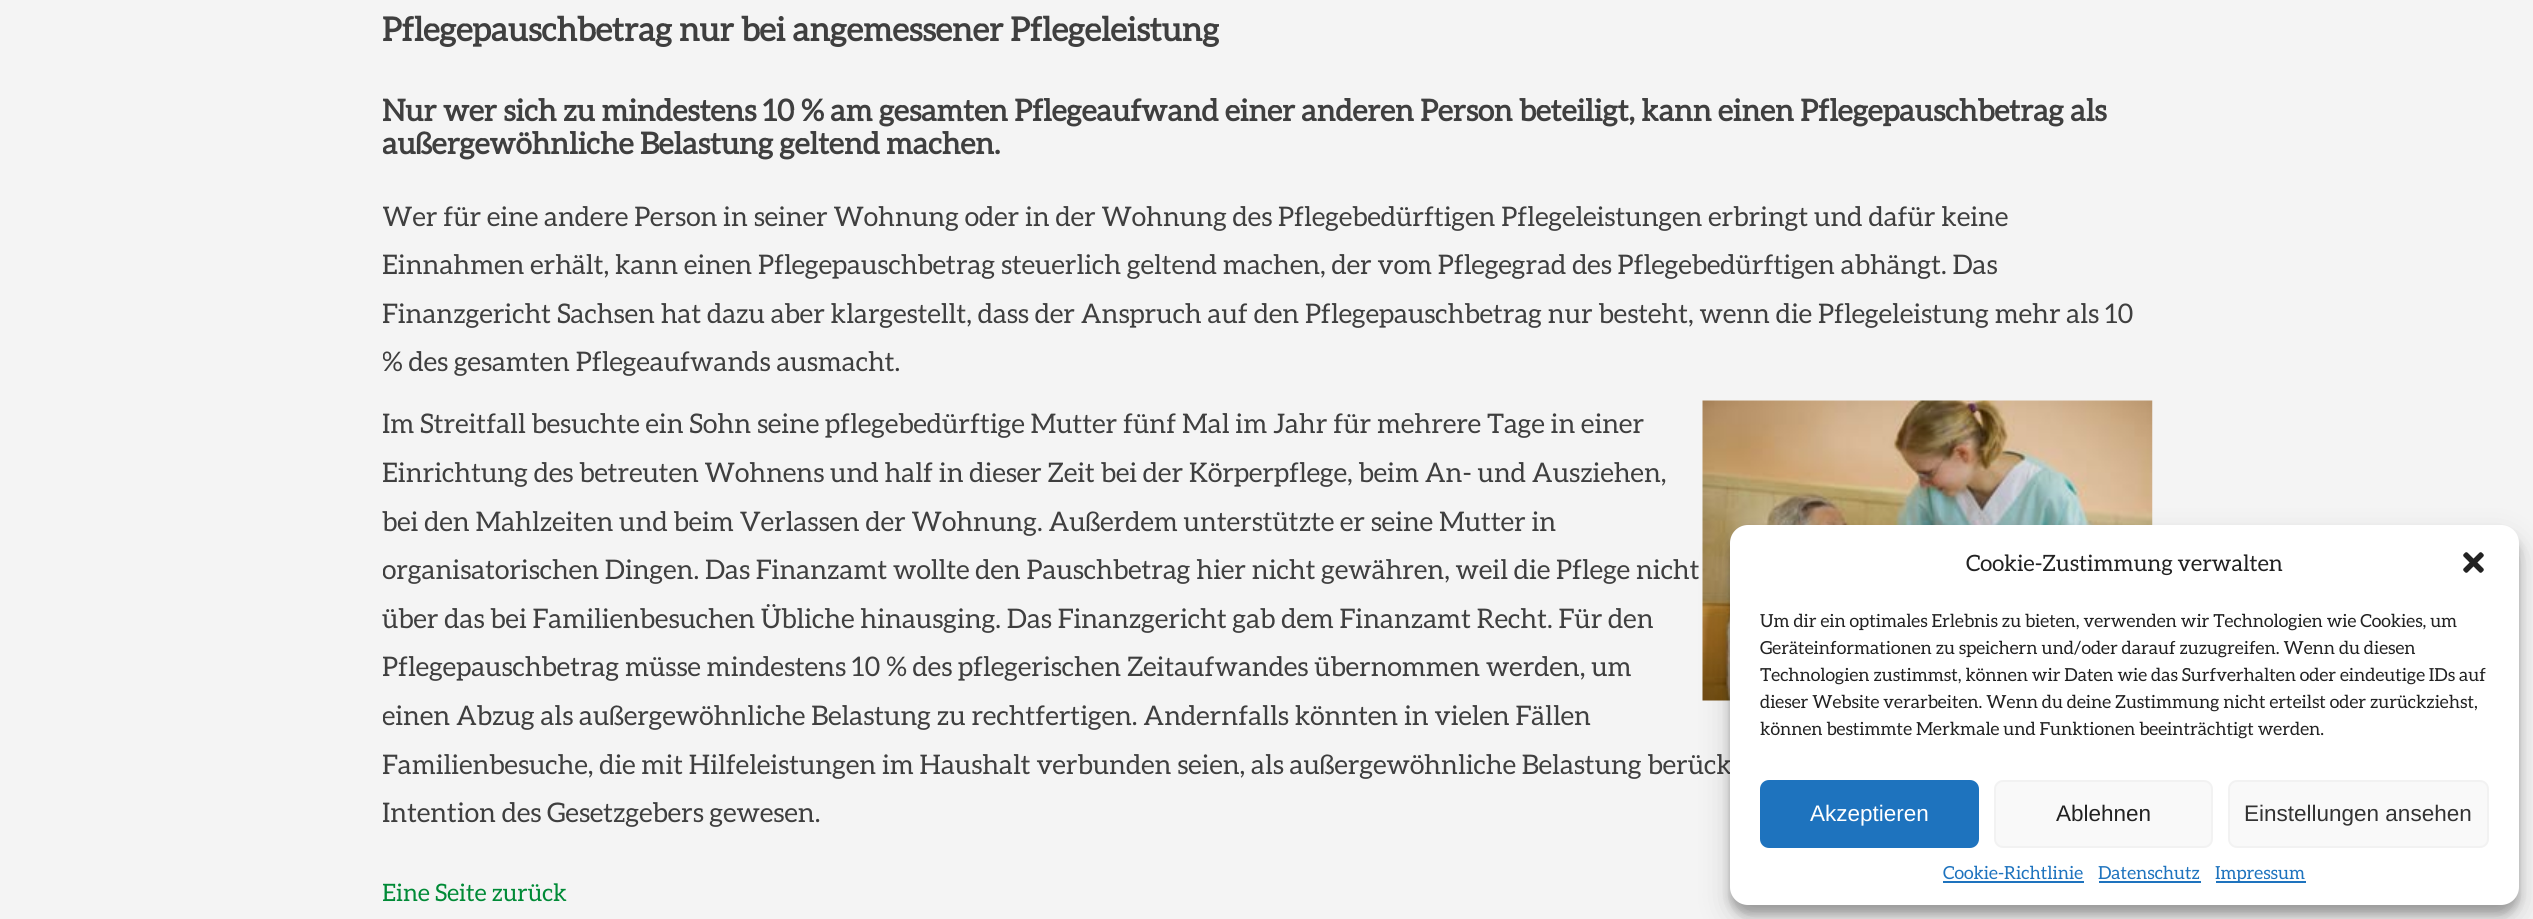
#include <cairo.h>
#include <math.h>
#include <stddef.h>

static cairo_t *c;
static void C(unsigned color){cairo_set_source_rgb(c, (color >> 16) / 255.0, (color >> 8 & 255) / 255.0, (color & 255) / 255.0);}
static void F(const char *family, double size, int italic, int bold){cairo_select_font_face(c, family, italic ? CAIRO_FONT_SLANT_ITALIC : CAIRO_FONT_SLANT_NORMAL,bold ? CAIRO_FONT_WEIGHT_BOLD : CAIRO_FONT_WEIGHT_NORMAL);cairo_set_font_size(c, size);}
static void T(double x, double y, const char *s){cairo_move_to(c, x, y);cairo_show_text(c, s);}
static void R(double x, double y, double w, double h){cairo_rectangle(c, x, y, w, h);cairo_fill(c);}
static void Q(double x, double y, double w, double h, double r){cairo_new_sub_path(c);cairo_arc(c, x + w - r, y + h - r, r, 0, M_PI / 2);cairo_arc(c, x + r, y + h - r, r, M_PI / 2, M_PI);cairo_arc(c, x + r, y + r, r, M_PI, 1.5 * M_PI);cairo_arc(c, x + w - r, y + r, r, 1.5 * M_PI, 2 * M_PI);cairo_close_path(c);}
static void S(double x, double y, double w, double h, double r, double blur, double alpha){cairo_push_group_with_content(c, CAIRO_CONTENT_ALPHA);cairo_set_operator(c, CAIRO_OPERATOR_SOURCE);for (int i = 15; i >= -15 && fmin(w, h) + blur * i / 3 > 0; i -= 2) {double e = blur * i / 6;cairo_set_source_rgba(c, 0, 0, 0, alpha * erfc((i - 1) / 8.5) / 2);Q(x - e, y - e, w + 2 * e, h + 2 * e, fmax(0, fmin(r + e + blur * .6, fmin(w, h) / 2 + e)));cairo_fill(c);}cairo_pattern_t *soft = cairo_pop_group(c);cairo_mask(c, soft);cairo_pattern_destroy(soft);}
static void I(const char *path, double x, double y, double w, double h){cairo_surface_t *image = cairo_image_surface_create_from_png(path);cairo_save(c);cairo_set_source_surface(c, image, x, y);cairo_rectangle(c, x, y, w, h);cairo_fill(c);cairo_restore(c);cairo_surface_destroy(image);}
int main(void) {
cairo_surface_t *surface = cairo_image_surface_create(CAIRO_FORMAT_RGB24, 2533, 919);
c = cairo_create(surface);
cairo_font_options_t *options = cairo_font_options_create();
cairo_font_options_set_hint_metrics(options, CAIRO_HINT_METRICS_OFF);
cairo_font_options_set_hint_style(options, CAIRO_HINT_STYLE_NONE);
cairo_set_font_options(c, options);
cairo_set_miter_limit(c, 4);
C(0xf4f4f4);
cairo_paint(c);
cairo_save(c);
cairo_rectangle(c,383,0,1770,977);
cairo_clip(c);
F("Aleo",33,0,1);
C(0x3f3f3f);
T(382,41,"Pflegepauschbetrag nur bei angemessener Pflegeleistung");
F("Aleo",30,0,1);
T(382,121,"Nur wer sich zu mindestens 10 % am gesamten Pflegeaufwand einer anderen Person beteiligt, kann einen Pflegepauschbetrag als");
T(382,154,"außergewöhnliche Belastung geltend machen.");
F("Aleo",27,0,0);
T(382,226,"Wer für eine andere Person in seiner Wohnung oder in der Wohnung des Pflegebedürftigen Pflegeleistungen erbringt und dafür keine");
T(382,274,"Einnahmen erhält, kann einen Pflegepauschbetrag steuerlich geltend machen, der vom Pflegegrad des Pflegebedürftigen abhängt. Das");
T(382,323,"Finanzgericht Sachsen hat dazu aber klargestellt, dass der Anspruch auf den Pflegepauschbetrag nur besteht, wenn die Pflegeleistung mehr als 10");
T(382,371,"% des gesamten Pflegeaufwands ausmacht.");
T(382,433,"Im Streitfall besuchte ein Sohn seine pflegebedürftige Mutter fünf Mal im Jahr für mehrere Tage in einer");
T(382,482,"Einrichtung des betreuten Wohnens und half in dieser Zeit bei der Körperpflege, beim An- und Ausziehen,");
cairo_restore(c);
F("Aleo",27,0,0);
C(0x3f3f3f);
T(382,531,"bei den Mahlzeiten und beim Verlassen der Wohnung. Außerdem unterstützte er seine Mutter in");
cairo_save(c);
cairo_rectangle(c,383,0,1770,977);
cairo_clip(c);
T(382,579,"organisatorischen Dingen. Das Finanzamt wollte den Pauschbetrag hier nicht gewähren, weil die Pflege nicht");
cairo_restore(c);
T(382,628,"über das bei Familienbesuchen Übliche hinausging. Das Finanzgericht gab dem Finanzamt Recht. Für den");
cairo_save(c);
cairo_rectangle(c,383,0,1770,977);
cairo_clip(c);
T(382,676,"Pflegepauschbetrag müsse mindestens 10 % des pflegerischen Zeitaufwandes übernommen werden, um");
T(382,725,"einen Abzug als außergewöhnliche Belastung zu rechtfertigen. Andernfalls könnten in vielen Fällen");
T(382,774,"Familienbesuche, die mit Hilfeleistungen im Haushalt verbunden seien, als außergewöhnliche Belastung berück");
T(382,822,"Intention des Gesetzgebers gewesen.");
cairo_restore(c);
I("1.png",1702,400,451,301);
cairo_save(c);
cairo_rectangle(c,383,0,1770,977);
cairo_clip(c);
F("Aleo",24,0,0);
C(0x008a36);
T(382,901,"Eine Seite zurück");
cairo_restore(c);
C(0x000000);
S(1730,534,789,380,18,4.5,.23);
S(1730,540,789,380,18,15,.19);
C(0xffffff);
Q(1730,525,789,380,18);
cairo_fill(c);
F("Aleo",22.5,0,0);
C(0x222222);
T(1966,571,"Cookie-Zustimmung verwalten");
I("2.png",2463,552,21,21);
F("Aleo",18,0,0);
T(1760,627,"Um dir ein optimales Erlebnis zu bieten, verwenden wir Technologien wie Cookies, um");
T(1760,654,"Geräteinformationen zu speichern und/oder darauf zuzugreifen. Wenn du diesen");
cairo_save(c);
cairo_rectangle(c,1760,608,729,142);
cairo_clip(c);
T(1760,681,"Technologien zustimmst, können wir Daten wie das Surfverhalten oder eindeutige IDs auf");
cairo_restore(c);
T(1760,708,"dieser Website verarbeiten. Wenn du deine Zustimmung nicht erteilst oder zurückziehst,");
T(1760,735,"können bestimmte Merkmale und Funktionen beeinträchtigt werden.");
C(0x1e73be);
Q(1761,781,217,66,8);
cairo_fill_preserve(c);
cairo_stroke(c);
F("Liberation Sans",22.5,0,0);
C(0xffffff);
T(1810,821,"Akzeptieren");
C(0xf9f9f9);
Q(1995,781,217,66,8);
cairo_fill_preserve(c);
C(0xf2f2f2);
cairo_stroke(c);
C(0x222222);
T(2056,821,"Ablehnen");
C(0xf9f9f9);
Q(2229,781,259,66,8);
cairo_fill_preserve(c);
C(0xf2f2f2);
cairo_stroke(c);
C(0x333333);
T(2244,821,"Einstellungen ansehen");
F("Aleo",18,0,0);
C(0x1e73be);
T(1943,879,"Cookie-Richtlinie");
R(1943,881,141,2);
T(2098,879,"Datenschutz");
R(2099,881,102,2);
R(2216,881,90,2);
T(2215,879,"Impressum");
cairo_surface_write_to_png(surface, "o.png");
cairo_font_options_destroy(options);
cairo_destroy(c);
cairo_surface_destroy(surface);
return 0;
}
